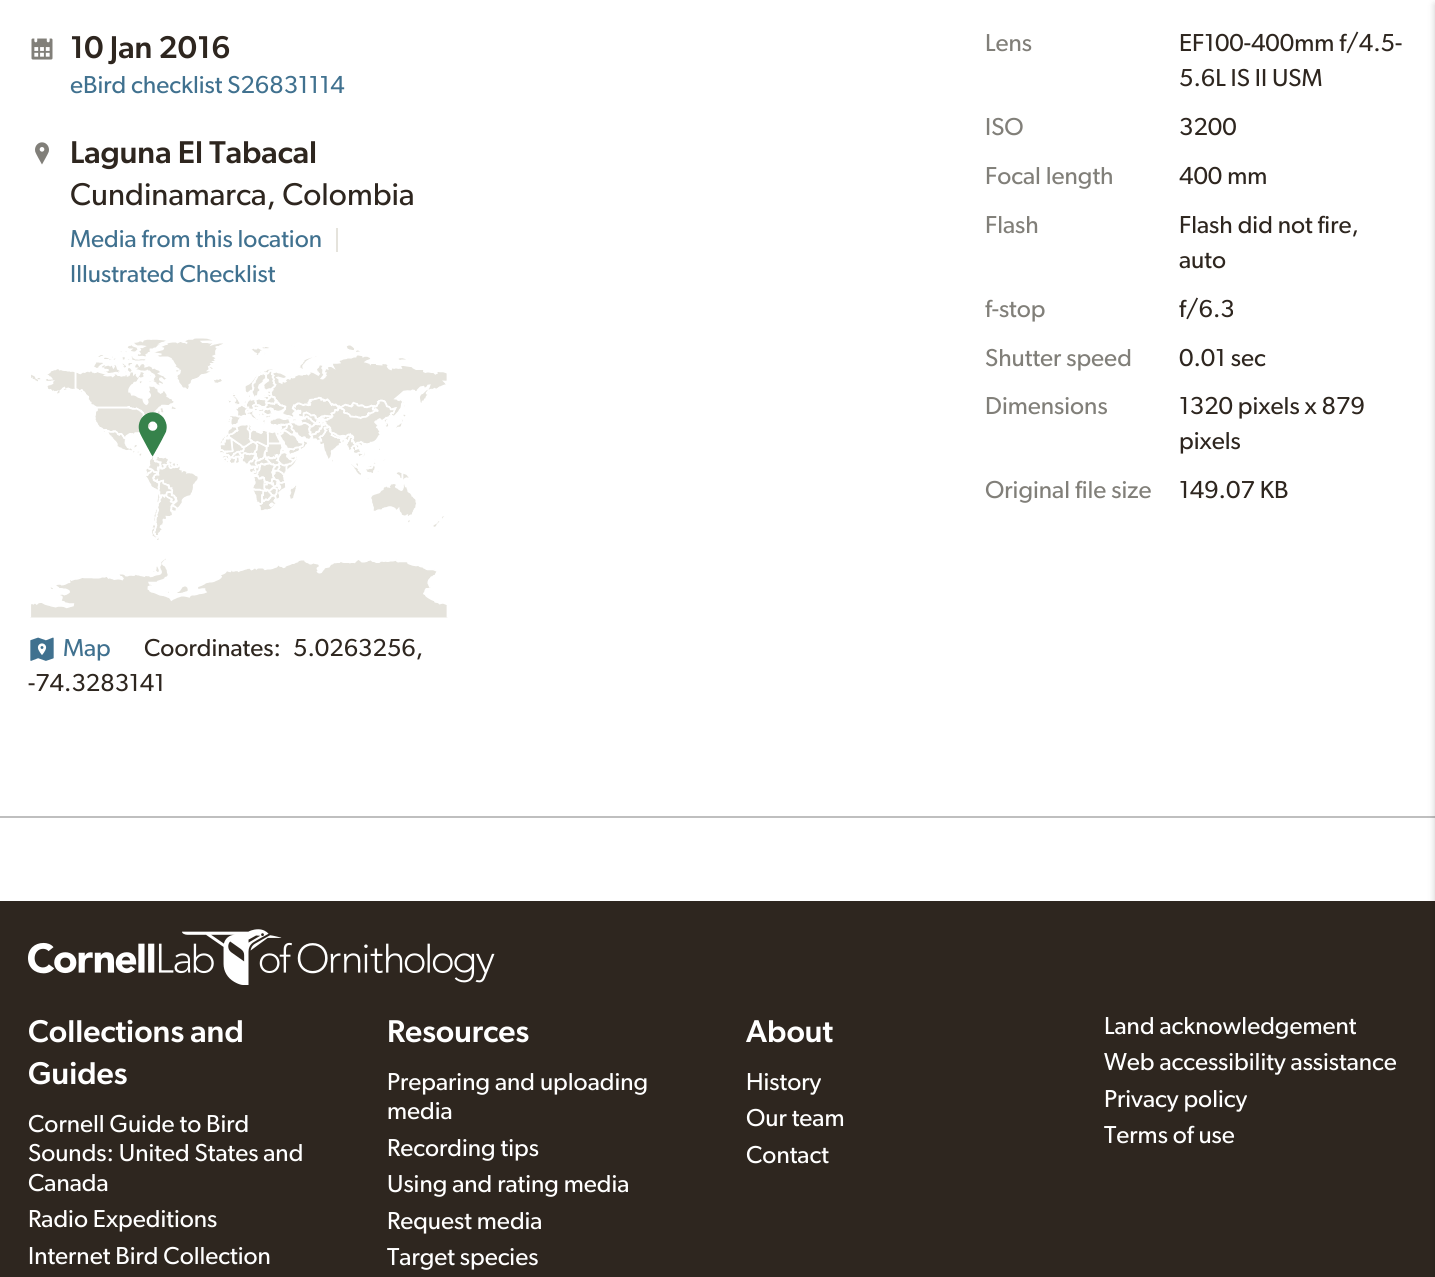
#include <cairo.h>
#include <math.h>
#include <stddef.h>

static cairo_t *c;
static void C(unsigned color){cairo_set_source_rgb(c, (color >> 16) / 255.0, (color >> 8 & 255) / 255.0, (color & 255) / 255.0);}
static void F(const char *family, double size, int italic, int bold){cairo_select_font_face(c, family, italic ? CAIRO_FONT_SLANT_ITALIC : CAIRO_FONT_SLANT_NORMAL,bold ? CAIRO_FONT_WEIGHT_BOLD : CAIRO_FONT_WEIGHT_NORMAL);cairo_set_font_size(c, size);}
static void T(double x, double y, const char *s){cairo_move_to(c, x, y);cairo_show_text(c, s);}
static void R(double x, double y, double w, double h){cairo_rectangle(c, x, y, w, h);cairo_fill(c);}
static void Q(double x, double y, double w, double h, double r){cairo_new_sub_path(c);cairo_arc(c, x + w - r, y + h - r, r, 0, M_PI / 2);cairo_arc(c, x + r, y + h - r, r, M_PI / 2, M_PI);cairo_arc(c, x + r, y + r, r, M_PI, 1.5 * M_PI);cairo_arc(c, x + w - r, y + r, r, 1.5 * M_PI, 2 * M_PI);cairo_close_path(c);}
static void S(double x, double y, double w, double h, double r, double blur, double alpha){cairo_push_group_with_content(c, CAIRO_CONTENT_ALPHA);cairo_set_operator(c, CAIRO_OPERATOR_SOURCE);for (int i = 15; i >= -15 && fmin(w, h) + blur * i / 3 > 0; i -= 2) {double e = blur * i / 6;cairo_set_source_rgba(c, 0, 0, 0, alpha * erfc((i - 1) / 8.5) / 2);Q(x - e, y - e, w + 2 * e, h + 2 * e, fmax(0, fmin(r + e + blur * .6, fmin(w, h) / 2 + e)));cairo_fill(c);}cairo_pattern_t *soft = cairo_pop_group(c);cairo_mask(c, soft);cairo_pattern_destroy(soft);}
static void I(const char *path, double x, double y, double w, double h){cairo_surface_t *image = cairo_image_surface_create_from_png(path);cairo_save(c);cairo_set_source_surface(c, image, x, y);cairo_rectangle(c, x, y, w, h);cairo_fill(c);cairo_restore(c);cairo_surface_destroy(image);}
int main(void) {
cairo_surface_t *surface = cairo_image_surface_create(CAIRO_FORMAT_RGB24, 1435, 1277);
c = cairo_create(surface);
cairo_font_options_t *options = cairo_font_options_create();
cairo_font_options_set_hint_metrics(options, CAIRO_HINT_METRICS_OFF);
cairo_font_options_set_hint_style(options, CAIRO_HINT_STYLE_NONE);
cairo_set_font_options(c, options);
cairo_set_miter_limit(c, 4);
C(0xffffff);
cairo_paint(c);
I("1.png",31,38,22,22);
F("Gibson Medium",31.6,0,0);
C(0x2e261f);
T(70,58,"10 Jan 2016");
F("Gibson",24.6,0,0);
C(0x40718f);
T(70,93,"eBird checklist S26831114");
I("2.png",35,142,14,23);
F("Gibson Medium",31.6,0,0);
C(0x2e261f);
T(70,163,"Laguna El Tabacal");
F("Gibson",31.6,0,0);
T(70,205,"Cundinamarca, Colombia");
F("Gibson",24.6,0,0);
C(0x40718f);
T(70,247,"Media from this location");
C(0xe5e3dc);
R(336,228,2,24);
C(0x40718f);
T(70,282,"Illustrated Checklist");
I("3.png",30,338,418,280);
I("4.png",30,637,24,24);
T(63,656,"Map");
C(0x2e261f);
T(144,656,"Coordinates:");
T(293,656,"5.0263256,");
T(28,691,"-74.3283141");
C(0x817f79);
T(985,51,"Lens");
C(0x2e261f);
T(1179,51,"EF100-400mm f/4.5-");
T(1179,86,"5.6L IS II USM");
C(0x817f79);
T(985,135,"ISO");
C(0x2e261f);
T(1179,135,"3200");
C(0x817f79);
T(985,184,"Focal length");
C(0x2e261f);
T(1179,184,"400 mm");
C(0x817f79);
T(985,233,"Flash");
C(0x2e261f);
T(1179,233,"Flash did not fire,");
T(1179,268,"auto");
C(0x817f79);
T(985,317,"f-stop");
C(0x2e261f);
T(1179,317,"f/6.3");
C(0x817f79);
T(985,366,"Shutter speed");
C(0x2e261f);
T(1179,366,"0.01 sec");
C(0x817f79);
T(985,414,"Dimensions");
C(0x2e261f);
T(1179,414,"1320 pixels x 879");
T(1179,449,"pixels");
C(0x817f79);
T(985,498,"Original file size");
C(0x2e261f);
T(1179,498,"149.07 KB");
C(0xbfbfbf);
R(0,816,1435,2);
C(0x2e261f);
R(0,901,1435,376);
C(0x000000);
S(1435,4,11,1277,0,3.5,.2);
I("5.png",28,929,467,56);
F("Gibson Medium",31.6,0,0);
C(0xffffff);
T(28,1042,"Collections and");
T(28,1084,"Guides");
F("Gibson",24.6,0,0);
T(28,1132,"Cornell Guide to Bird");
T(28,1161,"Sounds: United States and");
T(28,1191,"Canada");
T(28,1227,"Radio Expeditions");
T(28,1264,"Internet Bird Collection");
F("Gibson Medium",31.6,0,0);
T(387,1042,"Resources");
F("Gibson",24.6,0,0);
T(387,1090,"Preparing and uploading");
T(387,1119,"media");
T(387,1156,"Recording tips");
T(387,1192,"Using and rating media");
T(387,1229,"Request media");
T(387,1265,"Target species");
F("Gibson Medium",31.6,0,0);
T(746,1042,"About");
F("Gibson",24.6,0,0);
T(746,1090,"History");
T(746,1126,"Our team");
T(746,1163,"Contact");
T(1104,1034,"Land acknowledgement");
T(1104,1070,"Web accessibility assistance");
T(1104,1107,"Privacy policy");
T(1104,1143,"Terms of use");
cairo_surface_write_to_png(surface, "o.png");
cairo_font_options_destroy(options);
cairo_destroy(c);
cairo_surface_destroy(surface);
return 0;
}
